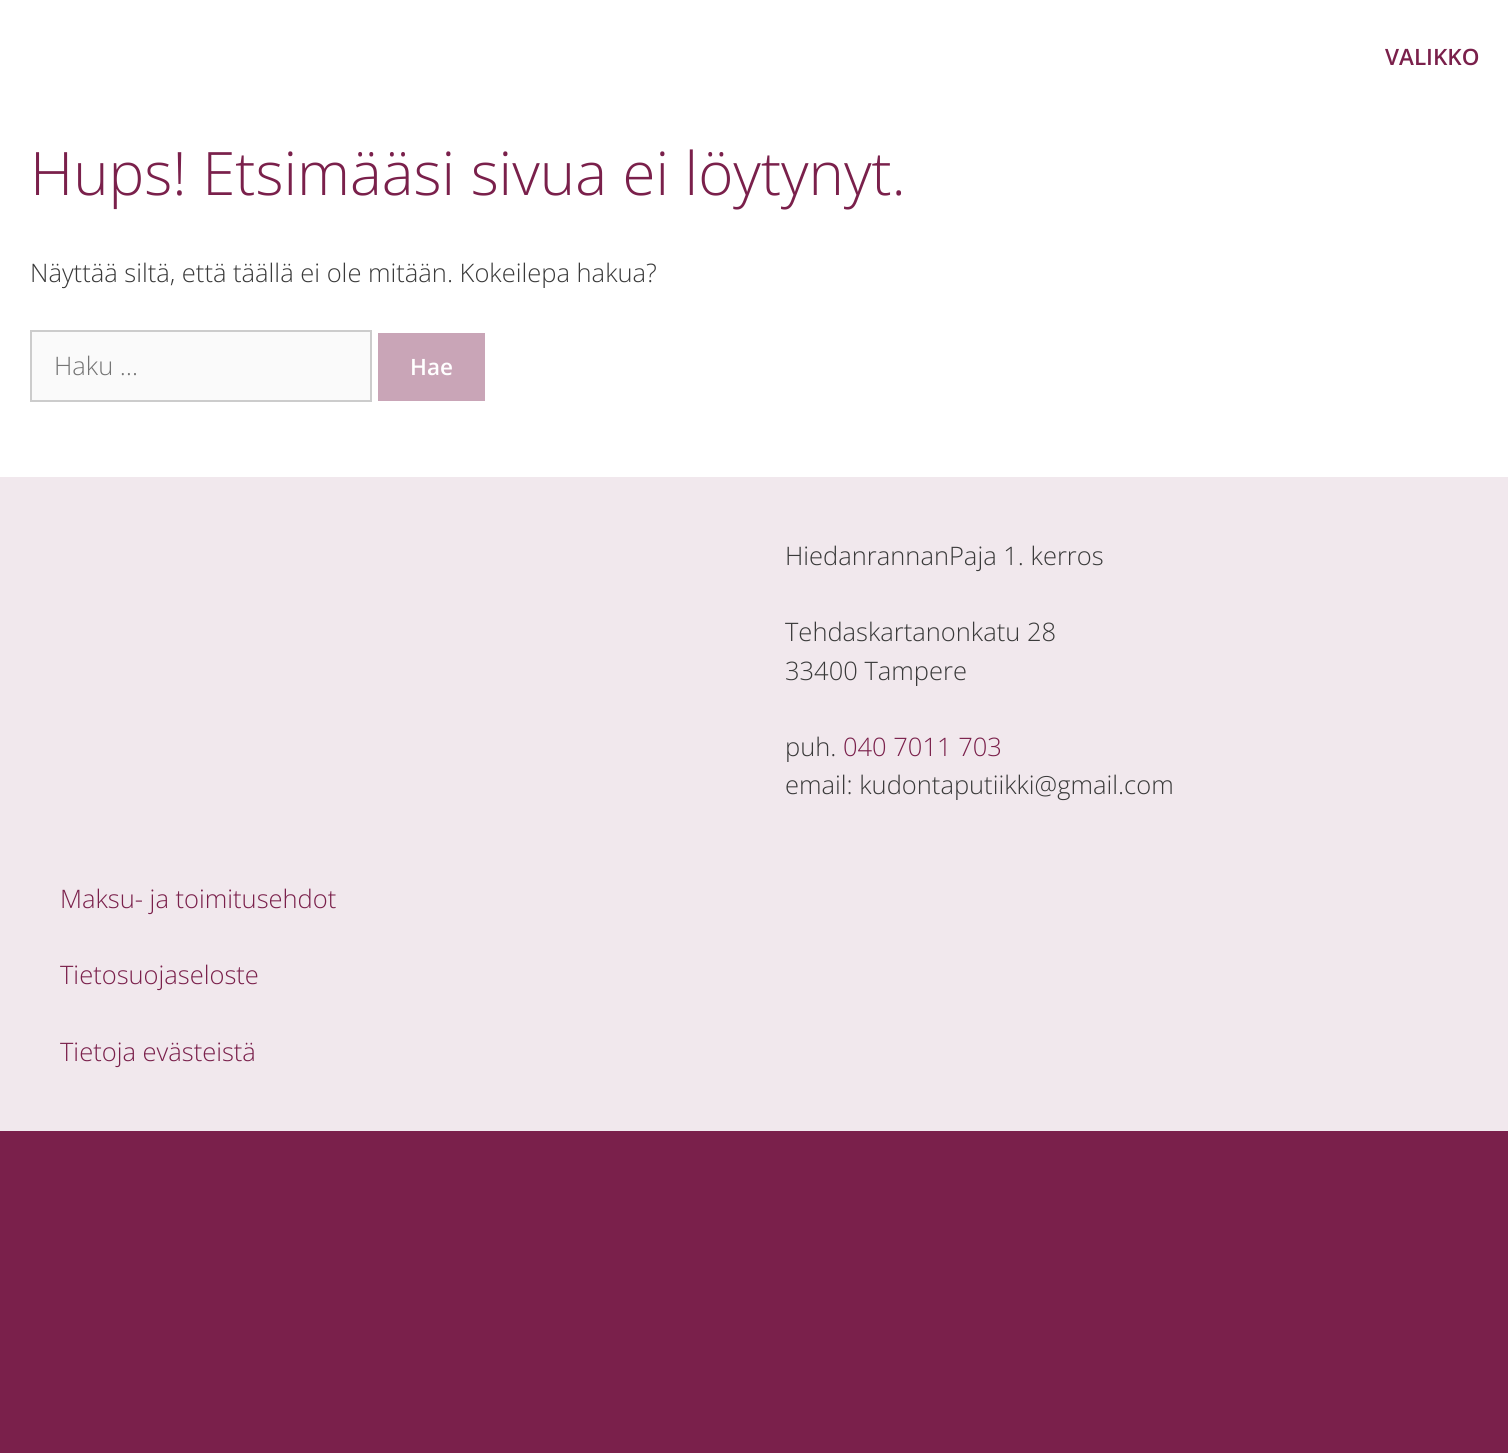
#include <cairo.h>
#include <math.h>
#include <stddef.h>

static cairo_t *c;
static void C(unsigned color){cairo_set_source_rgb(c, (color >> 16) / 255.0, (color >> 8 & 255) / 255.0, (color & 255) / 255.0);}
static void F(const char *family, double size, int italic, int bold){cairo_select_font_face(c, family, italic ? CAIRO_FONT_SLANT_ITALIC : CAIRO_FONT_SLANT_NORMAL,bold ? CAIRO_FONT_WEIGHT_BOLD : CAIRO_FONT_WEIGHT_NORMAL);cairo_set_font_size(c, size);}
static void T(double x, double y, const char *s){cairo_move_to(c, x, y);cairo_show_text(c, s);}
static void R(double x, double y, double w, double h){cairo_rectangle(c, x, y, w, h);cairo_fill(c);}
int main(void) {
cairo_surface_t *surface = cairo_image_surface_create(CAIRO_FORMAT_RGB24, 1508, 1453);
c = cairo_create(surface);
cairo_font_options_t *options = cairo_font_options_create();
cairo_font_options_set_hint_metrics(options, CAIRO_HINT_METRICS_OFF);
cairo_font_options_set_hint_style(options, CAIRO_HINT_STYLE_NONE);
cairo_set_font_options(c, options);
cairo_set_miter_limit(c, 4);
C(0xffffff);
cairo_paint(c);
F("Open Sans SemiBold",22.5,0,0);
C(0x7a204b);
T(1385,65,"VALIKKO");
F("Open Sans Light",60,0,0);
T(30,195,"Hups! Etsimääsi sivua ei löytynyt.");
F("Open Sans Light",25.5,0,0);
C(0x3a3a3a);
T(30,282,"Näyttää siltä, että täällä ei ole mitään. Kokeilepa hakua?");
C(0xfafafa);
cairo_rectangle(c,31,331,340,70);
cairo_fill_preserve(c);
C(0xcccccc);
cairo_stroke(c);
C(0x757575);
T(54,375,"Haku …");
C(0xc9a5b7);
R(378,333,107,68);
F("Open Sans SemiBold",22.5,0,0);
C(0xffffff);
T(410,375,"Hae");
C(0xf1e8ed);
R(0,477,1508,654);
F("Open Sans Light",25.5,0,0);
C(0x3a3a3a);
T(785,565,"HiedanrannanPaja 1. kerros");
T(785,641,"Tehdaskartanonkatu 28");
T(785,680,"33400 Tampere");
T(785,756,"puh.");
C(0x7a204b);
T(843,756,"040 7011 703");
C(0x3a3a3a);
T(785,794,"email: kudontaputiikki@gmail.com");
C(0x7a204b);
T(60,908,"Maksu- ja toimitusehdot");
T(60,984,"Tietosuojaseloste");
T(60,1061,"Tietoja evästeistä");
R(0,1131,1508,322);
cairo_surface_write_to_png(surface, "o.png");
cairo_font_options_destroy(options);
cairo_destroy(c);
cairo_surface_destroy(surface);
return 0;
}
